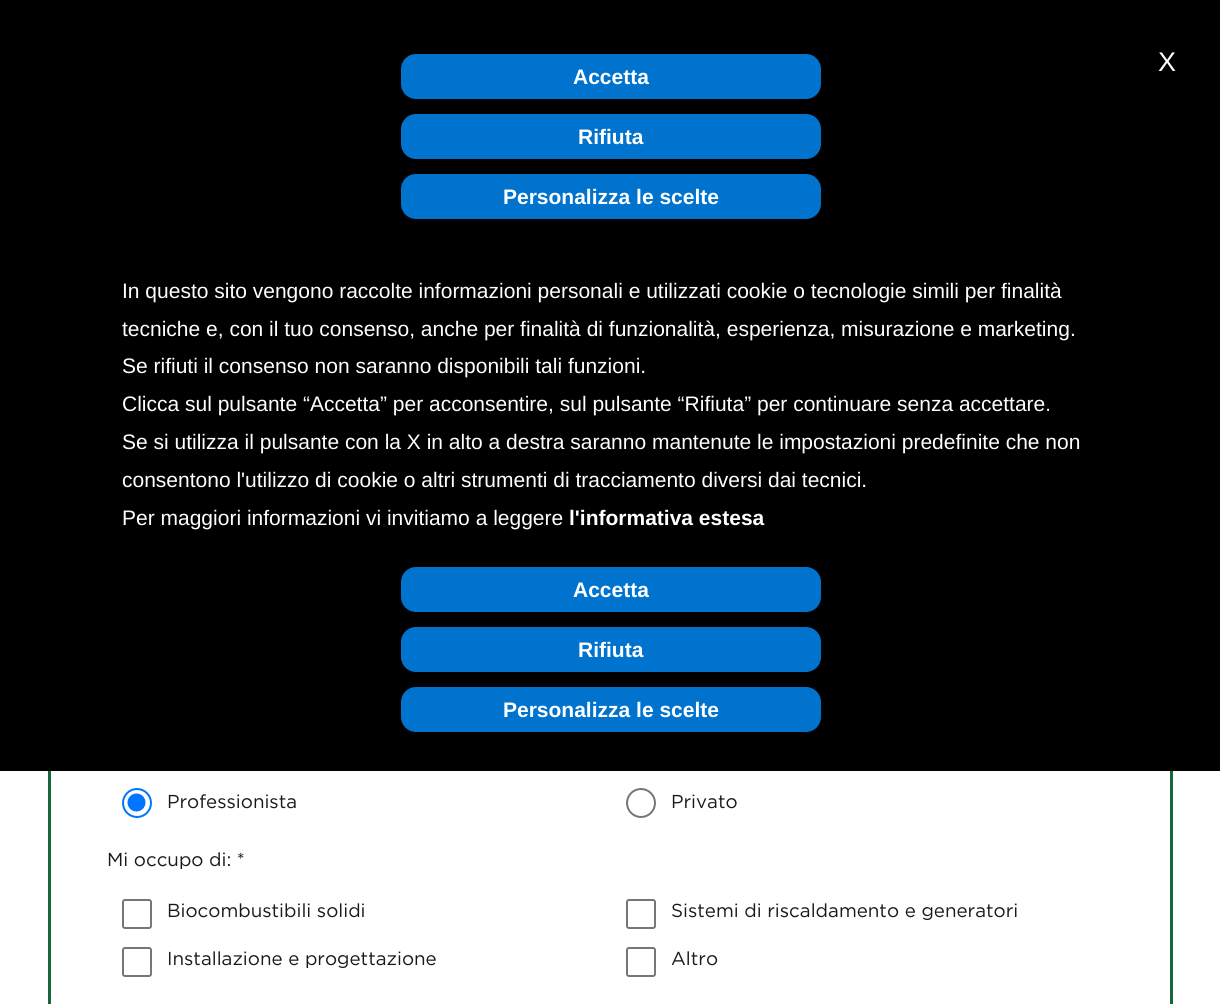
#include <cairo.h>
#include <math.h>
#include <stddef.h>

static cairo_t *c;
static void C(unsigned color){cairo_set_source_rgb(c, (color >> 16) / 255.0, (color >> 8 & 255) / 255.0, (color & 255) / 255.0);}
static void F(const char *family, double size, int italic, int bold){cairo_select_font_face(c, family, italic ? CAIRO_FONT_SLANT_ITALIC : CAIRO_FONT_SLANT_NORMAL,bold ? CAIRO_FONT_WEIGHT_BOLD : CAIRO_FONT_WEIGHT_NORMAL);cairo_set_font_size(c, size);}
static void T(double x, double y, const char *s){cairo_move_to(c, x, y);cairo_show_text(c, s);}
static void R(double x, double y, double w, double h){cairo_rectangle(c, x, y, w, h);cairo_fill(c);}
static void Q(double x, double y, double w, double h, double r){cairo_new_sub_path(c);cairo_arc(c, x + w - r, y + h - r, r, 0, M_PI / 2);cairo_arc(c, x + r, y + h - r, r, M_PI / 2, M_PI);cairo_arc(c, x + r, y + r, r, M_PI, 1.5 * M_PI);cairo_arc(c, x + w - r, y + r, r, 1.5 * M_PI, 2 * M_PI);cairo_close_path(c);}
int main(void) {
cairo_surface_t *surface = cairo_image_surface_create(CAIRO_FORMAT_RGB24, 1220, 1004);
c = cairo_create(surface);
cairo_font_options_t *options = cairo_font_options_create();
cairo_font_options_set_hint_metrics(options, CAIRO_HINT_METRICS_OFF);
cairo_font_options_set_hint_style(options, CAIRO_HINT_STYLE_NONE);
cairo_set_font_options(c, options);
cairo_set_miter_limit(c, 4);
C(0xffffff);
cairo_paint(c);
cairo_rectangle(c,49.5,324.5,1122,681);
C(0x176737);
cairo_set_line_width(c,3);
cairo_stroke(c);
C(0x000000);
R(0,0,1220,771);
F("Liberation Sans",27,0,0);
C(0xffffff);
T(1158,71,"X");
C(0x0073ce);
Q(401,54,420,45,15);
cairo_fill(c);
F("Liberation Sans",21,0,1);
C(0xffffff);
T(573,84,"Accetta");
C(0x0073ce);
Q(401,114,420,45,15);
cairo_fill(c);
C(0xffffff);
T(578,144,"Rifiuta");
C(0x0073ce);
Q(401,174,420,45,15);
cairo_fill(c);
C(0xffffff);
T(503,204,"Personalizza le scelte");
F("Liberation Sans",21,0,0);
T(122,298,"In questo sito vengono raccolte informazioni personali e utilizzati cookie o tecnologie simili per finalità");
T(122,336,"tecniche e, con il tuo consenso, anche per finalità di funzionalità, esperienza, misurazione e marketing.");
T(122,373,"Se rifiuti il consenso non saranno disponibili tali funzioni.");
T(122,411,"Clicca sul pulsante “Accetta” per acconsentire, sul pulsante “Rifiuta” per continuare senza accettare.");
T(122,449,"Se si utilizza il pulsante con la X in alto a destra saranno mantenute le impostazioni predefinite che non");
T(122,487,"consentono l'utilizzo di cookie o altri strumenti di tracciamento diversi dai tecnici.");
T(122,525,"Per maggiori informazioni vi invitiamo a leggere");
F("Liberation Sans",21,0,1);
T(569,525,"l'informativa estesa");
C(0x0073ce);
Q(401,567,420,45,15);
cairo_fill(c);
C(0xffffff);
T(573,597,"Accetta");
C(0x0073ce);
Q(401,627,420,45,15);
cairo_fill(c);
C(0xffffff);
T(578,657,"Rifiuta");
C(0x0073ce);
Q(401,687,420,45,15);
cairo_fill(c);
C(0xffffff);
T(503,717,"Personalizza le scelte");
cairo_new_path(c);
cairo_arc(c,137,803,14,0,2 * M_PI);
C(0x0075ff);
cairo_set_line_width(c,2);
cairo_stroke(c);
cairo_arc(c,136.5,802.5,9,0,2 * M_PI);
cairo_fill(c);
F("Gotham",18.75,0,0);
C(0x1a1918);
T(167,808,"Professionista");
cairo_new_path(c);
cairo_arc(c,641,803,14,0,2 * M_PI);
C(0x767676);
cairo_stroke(c);
C(0x1a1918);
T(671,808,"Privato");
T(107,866,"Mi occupo di: *");
Q(123,900,28,28,2);
C(0x767676);
cairo_stroke(c);
C(0x1a1918);
T(167,917,"Biocombustibili solidi");
Q(627,900,28,28,2);
C(0x767676);
cairo_stroke(c);
C(0x1a1918);
T(671,917,"Sistemi di riscaldamento e generatori");
Q(123,948,28,28,2);
C(0x767676);
cairo_stroke(c);
C(0x1a1918);
T(167,965,"Installazione e progettazione");
Q(627,948,28,28,2);
C(0x767676);
cairo_stroke(c);
C(0x1a1918);
T(671,965,"Altro");
cairo_surface_write_to_png(surface, "o.png");
cairo_font_options_destroy(options);
cairo_destroy(c);
cairo_surface_destroy(surface);
return 0;
}
